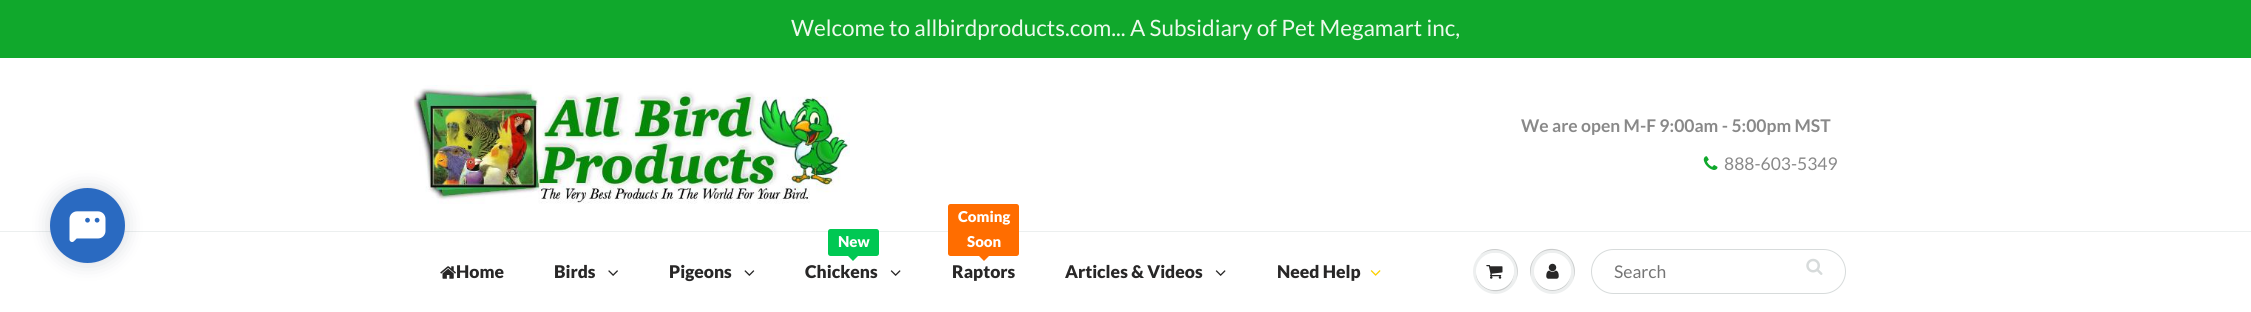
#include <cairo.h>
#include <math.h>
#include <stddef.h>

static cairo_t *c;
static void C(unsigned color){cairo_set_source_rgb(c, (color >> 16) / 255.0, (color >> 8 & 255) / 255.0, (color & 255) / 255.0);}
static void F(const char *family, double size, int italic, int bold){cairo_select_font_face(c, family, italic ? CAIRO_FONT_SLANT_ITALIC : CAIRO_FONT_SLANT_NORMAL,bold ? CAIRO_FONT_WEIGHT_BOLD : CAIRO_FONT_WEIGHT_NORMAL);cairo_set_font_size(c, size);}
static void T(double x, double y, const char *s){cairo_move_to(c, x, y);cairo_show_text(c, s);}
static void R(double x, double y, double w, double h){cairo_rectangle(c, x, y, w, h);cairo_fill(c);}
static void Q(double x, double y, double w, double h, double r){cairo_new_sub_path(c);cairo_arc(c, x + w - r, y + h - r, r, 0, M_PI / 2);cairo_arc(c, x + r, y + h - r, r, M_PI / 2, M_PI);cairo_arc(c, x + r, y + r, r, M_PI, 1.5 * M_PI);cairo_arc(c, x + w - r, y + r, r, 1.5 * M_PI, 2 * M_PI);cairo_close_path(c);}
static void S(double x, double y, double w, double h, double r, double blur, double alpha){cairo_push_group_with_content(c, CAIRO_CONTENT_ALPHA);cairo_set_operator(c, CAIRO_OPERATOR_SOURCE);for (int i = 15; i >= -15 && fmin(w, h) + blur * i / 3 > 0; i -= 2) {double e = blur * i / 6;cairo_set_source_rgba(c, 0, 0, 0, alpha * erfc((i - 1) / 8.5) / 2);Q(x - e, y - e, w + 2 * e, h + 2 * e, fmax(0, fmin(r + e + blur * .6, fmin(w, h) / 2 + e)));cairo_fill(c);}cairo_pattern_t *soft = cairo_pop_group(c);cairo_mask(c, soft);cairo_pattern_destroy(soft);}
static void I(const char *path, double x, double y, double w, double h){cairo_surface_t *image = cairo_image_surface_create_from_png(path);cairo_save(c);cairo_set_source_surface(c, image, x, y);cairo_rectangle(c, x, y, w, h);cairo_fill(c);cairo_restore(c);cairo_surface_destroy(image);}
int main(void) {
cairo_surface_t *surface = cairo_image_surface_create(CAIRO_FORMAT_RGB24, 2251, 312);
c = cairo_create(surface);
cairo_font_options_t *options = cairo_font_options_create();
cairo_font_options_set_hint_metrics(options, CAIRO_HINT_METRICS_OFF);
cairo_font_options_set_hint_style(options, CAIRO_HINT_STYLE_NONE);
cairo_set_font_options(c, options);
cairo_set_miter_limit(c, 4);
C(0xffffff);
cairo_paint(c);
C(0xecefef);
R(0,231,2251,1);
C(0x00122e);
S(50,188,75,75,37.5,10,.16);
C(0x2a6ac1);
cairo_arc(c,87.5,225.5,37.5,0,2 * M_PI);
cairo_fill(c);
I("1.png",69,211,37,31);
C(0x10a82c);
R(0,0,2251,58);
F("Lato",22.5,0,0);
C(0xecf9ec);
T(791,36,"Welcome to allbirdproducts.com... A Subsidiary of Pet Megamart inc,");
I("2.png",413,85,437,119);
F("Lato",17.5,0,1);
C(0x898989);
T(1521,132,"We are open M-F 9:00am - 5:00pm MST");
I("3.png",1703,156,15,14);
F("Lato",17.5,0,0);
T(1724,170,"888-603-5349");
I("4.png",440,266,16,13);
F("Lato Black",17.5,0,0);
C(0x282727);
T(456,278,"Home");
T(554,278,"Birds");
I("5.png",608,270,10,6);
T(669,278,"Pigeons");
I("6.png",744,270,11,6);
C(0x00c853);
Q(828,229,51,27,2.5);
cairo_fill(c);
F("Lato Black",15,0,0);
C(0xffffff);
T(838,247,"New");
C(0x00c853);
cairo_new_path(c);
cairo_move_to(c,848,256);
cairo_line_to(c,858,256);
cairo_line_to(c,853,261);
cairo_close_path(c);
cairo_fill(c);
F("Lato Black",17.5,0,0);
C(0x282727);
T(805,278,"Chickens");
I("7.png",890,270,11,6);
C(0xff6d00);
Q(948,204,71,52,2.5);
cairo_fill(c);
F("Lato Black",15,0,0);
C(0xffffff);
T(958,222,"Coming");
T(967,247,"Soon");
C(0xff6d00);
cairo_new_path(c);
cairo_move_to(c,979,256);
cairo_line_to(c,989,256);
cairo_line_to(c,984,261);
cairo_close_path(c);
cairo_fill(c);
F("Lato Black",17.5,0,0);
C(0x282727);
T(952,278,"Raptors");
T(1065,278,"Articles & Videos");
I("7.png",1215,270,11,6);
T(1277,278,"Need Help");
I("8.png",1370,270,11,6);
C(0xedefef);
cairo_arc(c,1495.5,271.5,22.5,0,2 * M_PI);
cairo_fill(c);
C(0xc9cbcb);
cairo_new_path(c);
cairo_move_to(c,1495,250);
cairo_curve_to(c,1513,250,1520,267,1516,280);
cairo_curve_to(c,1525,258,1497,239,1480,255);
cairo_curve_to(c,1484,252,1489,250,1495,250);
cairo_close_path(c);
cairo_fill(c);
cairo_new_path(c);
cairo_move_to(c,1476.5,268.5);
cairo_curve_to(c,1472,288.5,1499.5,300,1511,283);
cairo_curve_to(c,1513.5,278.5,1514.5,273,1513.5,268.5);
cairo_curve_to(c,1516.5,287.5,1490.5,298.5,1479.5,281.5);
cairo_curve_to(c,1477,278,1475.5,273,1476.5,268.5);
cairo_close_path(c);
cairo_fill(c);
C(0xffffff);
Q(1476,253,38,37,18.5);
cairo_fill(c);
cairo_new_path(c);
cairo_move_to(c,1495,254);
cairo_curve_to(c,1509,254,1515,266,1513,276);
cairo_curve_to(c,1515,271,1514,265,1511,261);
cairo_curve_to(c,1499,244,1472,256,1477,276);
cairo_curve_to(c,1475,266,1481,254,1495,254);
cairo_close_path(c);
cairo_fill(c);
I("9.png",1486,265,17,14);
C(0xedefef);
cairo_arc(c,1552.5,271.5,22.5,0,2 * M_PI);
cairo_fill(c);
C(0xc9cbcb);
cairo_new_path(c);
cairo_move_to(c,1552,250);
cairo_curve_to(c,1570,250,1577,267,1573,280);
cairo_curve_to(c,1583,256,1549,236,1534,259);
cairo_curve_to(c,1530,264,1529,271,1531,277);
cairo_curve_to(c,1529,264,1536,250,1552,250);
cairo_close_path(c);
cairo_fill(c);
cairo_new_path(c);
cairo_move_to(c,1534.5,275.5);
cairo_curve_to(c,1537.5,296,1567.5,296,1570.5,275.5);
cairo_curve_to(c,1566,294.5,1539,294.5,1534.5,275.5);
cairo_close_path(c);
cairo_fill(c);
C(0xffffff);
cairo_arc(c,1552.5,271.5,18.5,0,2 * M_PI);
cairo_fill(c);
cairo_new_path(c);
cairo_move_to(c,1552,254);
cairo_curve_to(c,1566,254,1572,265.5,1570.5,276);
cairo_curve_to(c,1575.5,256.5,1549,244,1537,261);
cairo_curve_to(c,1535,264.5,1534,268,1534,272);
cairo_curve_to(c,1534,263,1540,254,1552,254);
cairo_close_path(c);
cairo_fill(c);
I("10.png",1546,263,13,16);
Q(1591.5,249.5,254,44,22);
C(0xd7dbdb);
cairo_set_line_width(c,1);
cairo_stroke(c);
F("Lato",17.5,0,0);
C(0x757575);
T(1614,278,"Search");
I("11.png",1806,258,17,17);
cairo_surface_write_to_png(surface, "o.png");
cairo_font_options_destroy(options);
cairo_destroy(c);
cairo_surface_destroy(surface);
return 0;
}
